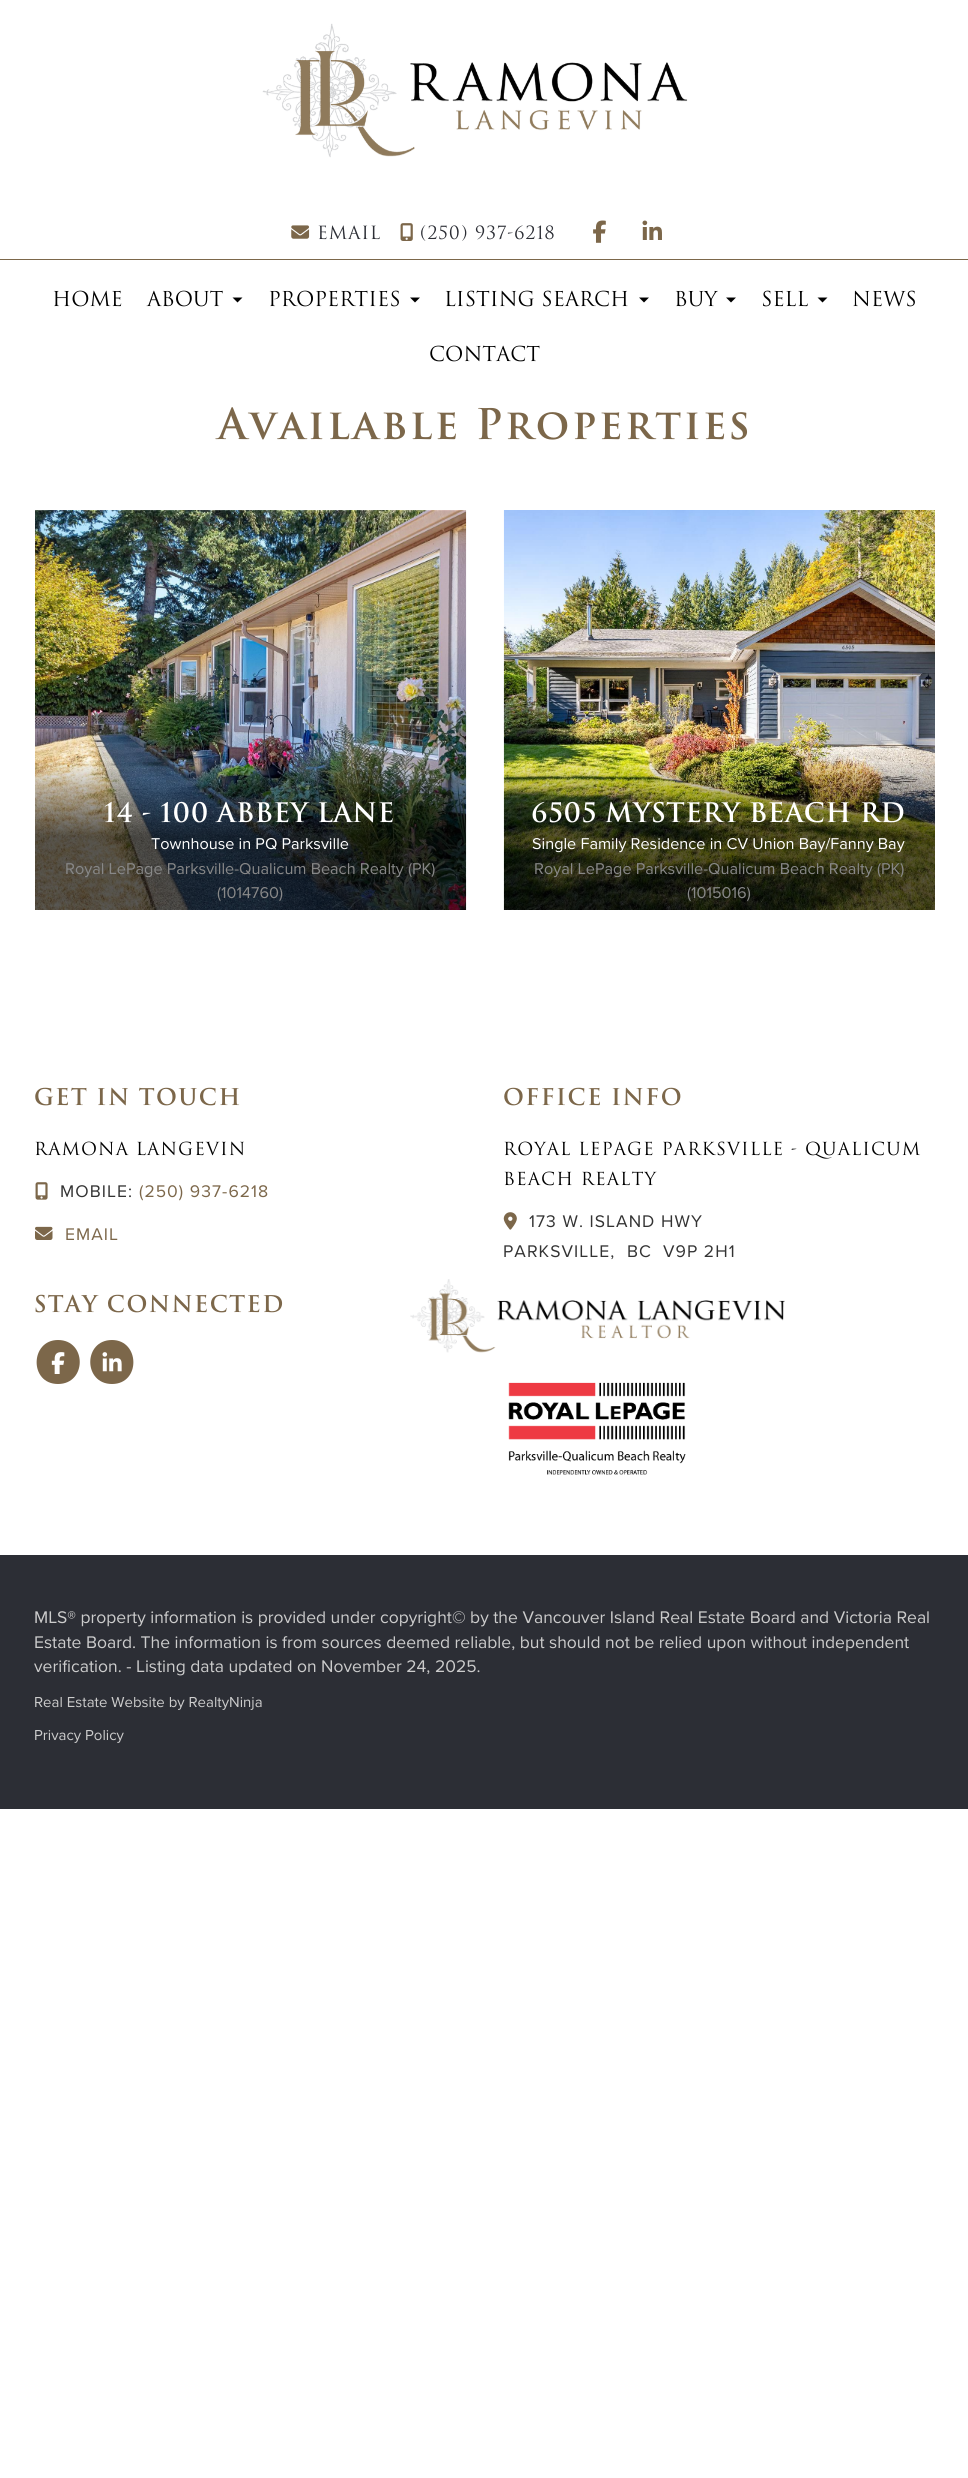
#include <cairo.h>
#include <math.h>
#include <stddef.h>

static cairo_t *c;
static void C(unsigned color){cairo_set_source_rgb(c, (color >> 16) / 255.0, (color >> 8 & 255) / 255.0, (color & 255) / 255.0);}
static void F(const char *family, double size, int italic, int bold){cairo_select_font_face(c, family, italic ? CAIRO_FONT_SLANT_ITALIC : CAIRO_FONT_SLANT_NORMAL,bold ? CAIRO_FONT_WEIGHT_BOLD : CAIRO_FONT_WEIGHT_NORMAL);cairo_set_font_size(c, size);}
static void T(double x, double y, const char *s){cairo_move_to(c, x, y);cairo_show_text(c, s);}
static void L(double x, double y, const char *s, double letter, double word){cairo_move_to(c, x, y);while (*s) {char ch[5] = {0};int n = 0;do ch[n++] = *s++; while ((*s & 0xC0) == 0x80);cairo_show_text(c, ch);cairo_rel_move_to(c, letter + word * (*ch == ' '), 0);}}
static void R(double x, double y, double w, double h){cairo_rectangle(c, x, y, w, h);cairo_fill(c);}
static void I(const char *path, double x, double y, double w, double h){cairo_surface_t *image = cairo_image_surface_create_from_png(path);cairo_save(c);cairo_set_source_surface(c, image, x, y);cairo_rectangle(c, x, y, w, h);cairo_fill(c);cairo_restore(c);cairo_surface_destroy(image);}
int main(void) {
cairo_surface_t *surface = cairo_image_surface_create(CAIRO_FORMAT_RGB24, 968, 2478);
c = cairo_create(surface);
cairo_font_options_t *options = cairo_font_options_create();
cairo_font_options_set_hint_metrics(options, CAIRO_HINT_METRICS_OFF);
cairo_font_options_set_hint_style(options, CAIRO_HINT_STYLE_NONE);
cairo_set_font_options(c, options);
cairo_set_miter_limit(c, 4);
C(0xffffff);
cairo_paint(c);
I("1.png",262,23,426,135);
I("2.png",291,225,19,14);
F("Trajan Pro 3",17.75,0,0);
C(0x2c2e35);
L(317,239,"EMAIL",.75,0);
I("3.png",400,223,13,18);
L(420,239,"(250) 937-6218",.75,0);
I("4.png",593,220,13,23);
I("5.png",642,220,20,20);
C(0x7c674a);
R(0,259,968,1);
F("Trajan Pro 3",20,0,0);
C(0x000000);
T(52,306,"HOME");
T(147,306,"ABOUT");
cairo_new_path(c);
cairo_move_to(c,232.5,297.5);
cairo_line_to(c,242.5,297.5);
cairo_line_to(c,237.5,302.5);
cairo_close_path(c);
cairo_fill(c);
T(268,306,"PROPERTIES");
cairo_new_path(c);
cairo_move_to(c,410,297.5);
cairo_line_to(c,420,297.5);
cairo_line_to(c,415,302.5);
cairo_close_path(c);
cairo_fill(c);
T(444,306,"LISTING SEARCH");
cairo_new_path(c);
cairo_move_to(c,639,297.5);
cairo_line_to(c,649,297.5);
cairo_line_to(c,644,302.5);
cairo_close_path(c);
cairo_fill(c);
T(674,306,"BUY");
cairo_new_path(c);
cairo_move_to(c,726,297.5);
cairo_line_to(c,736,297.5);
cairo_line_to(c,731,302.5);
cairo_close_path(c);
cairo_fill(c);
T(761,306,"SELL");
cairo_new_path(c);
cairo_move_to(c,817.5,297.5);
cairo_line_to(c,827.5,297.5);
cairo_line_to(c,822.5,302.5);
cairo_close_path(c);
cairo_fill(c);
T(852,306,"NEWS");
T(429,361,"CONTACT");
F("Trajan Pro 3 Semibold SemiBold",41.25,0,0);
C(0x7c674a);
L(218,439,"Available Properties",2.5,0);
I("6.png",35,510,432,400);
F("Trajan Pro 3 Semibold SemiBold",26.25,0,0);
C(0xffffff);
L(104,822,"14 - 100 ABBEY LANE",.5,0);
F("Proxima Nova",16.25,0,0);
T(151,849,"Townhouse in PQ Parksville");
C(0x888888);
T(65,874,"Royal LePage Parksville-Qualicum Beach Realty (PK)");
T(217,898,"(1014760)");
I("7.png",503,510,432,400);
F("Trajan Pro 3 Semibold SemiBold",26.25,0,0);
C(0xffffff);
L(531,822,"6505 MYSTERY BEACH RD",.5,0);
F("Proxima Nova",16.25,0,0);
T(532,849,"Single Family Residence in CV Union Bay/Fanny Bay");
C(0x888888);
T(534,874,"Royal LePage Parksville-Qualicum Beach Realty (PK)");
T(687,898,"(1015016)");
F("Trajan Pro 3 Semibold SemiBold",22.5,0,0);
C(0x7c674a);
L(34,1105,"GET IN TOUCH",1.4,0);
F("Trajan Pro 3",17.5,0,0);
C(0x000000);
L(34,1155,"RAMONA LANGEVIN",1.05,0);
I("8.png",35,1182,13,18);
F("Proxima Nova",17.5,0,0);
C(0x333333);
L(60,1197,"MOBILE:",1.05,0);
C(0x7c674a);
L(139,1197,"(250) 937-6218",1.05,0);
I("9.png",35,1226,18,14);
L(65,1240,"EMAIL",1.05,0);
F("Trajan Pro 3 Semibold SemiBold",22.5,0,0);
L(503,1105,"OFFICE INFO",1.4,0);
F("Trajan Pro 3",17.5,0,0);
C(0x000000);
L(503,1155,"ROYAL LEPAGE PARKSVILLE - QUALICUM",1.05,0);
L(503,1185,"BEACH REALTY",1.05,0);
I("10.png",503,1212,14,18);
F("Proxima Nova",17.5,0,0);
C(0x333333);
L(529,1227,"173 W. ISLAND HWY",1.05,0);
L(503,1257,"PARKSVILLE,",1.05,0);
L(627,1257,"BC",1.05,0);
L(663,1257,"V9P 2H1",1.05,0);
F("Trajan Pro 3 Semibold SemiBold",22.5,0,0);
C(0x7c674a);
L(34,1312,"STAY CONNECTED",1.4,0);
cairo_new_path(c);
cairo_move_to(c,58,1384);
cairo_curve_to(c,87,1384,87,1340,58,1340);
cairo_curve_to(c,30,1340,29,1384,58,1384);
cairo_close_path(c);
cairo_fill(c);
I("11.png",51,1352,14,22);
cairo_new_path(c);
cairo_move_to(c,112,1384);
cairo_curve_to(c,141,1384,140,1340,112,1340);
cairo_curve_to(c,83,1340,83,1384,112,1384);
cairo_close_path(c);
cairo_fill(c);
I("12.png",102,1352,20,20);
I("13.png",410,1279,375,74);
I("14.png",508,1382,178,93);
C(0x2c2e35);
R(0,1555,968,254);
F("Proxima Nova",17.5,0,0);
C(0xcccccc);
T(34,1623,"MLS® property information is provided under copyright© by the Vancouver Island Real Estate Board and Victoria Real");
T(34,1648,"Estate Board. The information is from sources deemed reliable, but should not be relied upon without independent");
T(34,1672,"verification. - Listing data updated on November 24, 2025.");
F("Proxima Nova",15,0,0);
T(34,1707,"Real Estate Website by RealtyNinja");
T(34,1740,"Privacy Policy");
cairo_surface_write_to_png(surface, "o.png");
cairo_font_options_destroy(options);
cairo_destroy(c);
cairo_surface_destroy(surface);
return 0;
}
